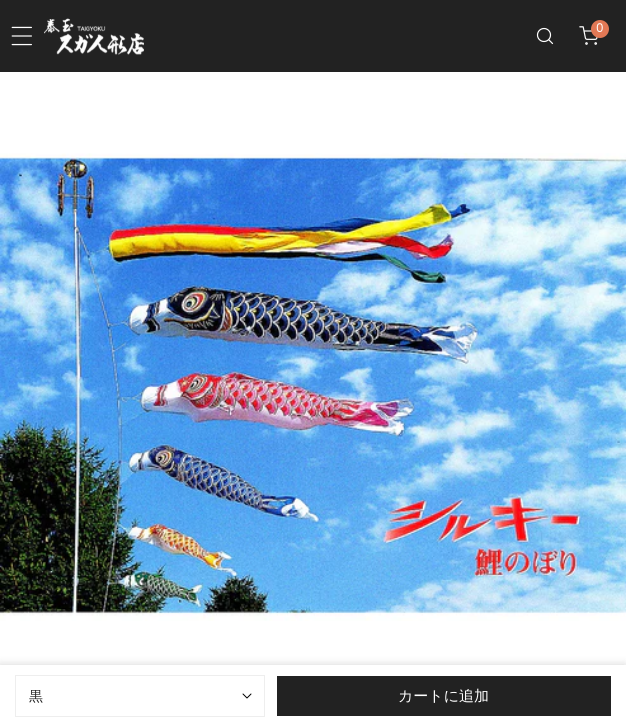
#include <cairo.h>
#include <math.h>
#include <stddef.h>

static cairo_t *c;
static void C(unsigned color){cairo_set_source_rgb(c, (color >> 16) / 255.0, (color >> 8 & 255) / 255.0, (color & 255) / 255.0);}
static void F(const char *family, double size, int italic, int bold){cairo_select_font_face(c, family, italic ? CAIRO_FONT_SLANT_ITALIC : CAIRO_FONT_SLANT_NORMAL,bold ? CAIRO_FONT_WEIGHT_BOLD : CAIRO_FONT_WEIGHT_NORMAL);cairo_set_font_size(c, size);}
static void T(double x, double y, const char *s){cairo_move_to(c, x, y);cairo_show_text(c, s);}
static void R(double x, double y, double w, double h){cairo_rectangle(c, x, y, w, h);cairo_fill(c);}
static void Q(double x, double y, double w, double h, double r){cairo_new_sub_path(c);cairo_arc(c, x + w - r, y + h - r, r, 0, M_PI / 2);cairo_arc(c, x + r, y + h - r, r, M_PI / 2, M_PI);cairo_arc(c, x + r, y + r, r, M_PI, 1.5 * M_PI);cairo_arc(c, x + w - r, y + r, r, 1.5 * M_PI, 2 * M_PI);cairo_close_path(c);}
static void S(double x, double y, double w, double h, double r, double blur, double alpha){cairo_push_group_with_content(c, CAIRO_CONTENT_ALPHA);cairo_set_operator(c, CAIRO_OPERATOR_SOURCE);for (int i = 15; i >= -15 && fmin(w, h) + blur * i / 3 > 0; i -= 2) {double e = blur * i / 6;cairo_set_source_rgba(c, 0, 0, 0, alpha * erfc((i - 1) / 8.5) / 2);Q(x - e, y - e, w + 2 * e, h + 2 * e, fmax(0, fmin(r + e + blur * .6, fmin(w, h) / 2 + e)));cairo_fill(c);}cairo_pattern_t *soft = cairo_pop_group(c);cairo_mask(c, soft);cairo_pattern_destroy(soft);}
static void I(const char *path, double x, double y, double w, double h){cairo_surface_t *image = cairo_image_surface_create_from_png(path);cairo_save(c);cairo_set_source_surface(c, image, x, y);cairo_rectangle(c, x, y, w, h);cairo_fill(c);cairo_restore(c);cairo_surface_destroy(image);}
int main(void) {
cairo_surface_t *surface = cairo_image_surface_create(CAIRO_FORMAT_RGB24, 626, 727);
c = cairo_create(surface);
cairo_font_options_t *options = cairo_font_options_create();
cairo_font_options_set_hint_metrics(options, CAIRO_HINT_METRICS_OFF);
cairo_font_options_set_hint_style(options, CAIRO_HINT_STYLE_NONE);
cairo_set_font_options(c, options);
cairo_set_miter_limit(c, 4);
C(0xffffff);
cairo_paint(c);
C(0x222222);
R(0,0,626,72);
I("1.png",11,26,21,20);
I("2.png",44,18,100,37);
cairo_arc(c,544,35,6.5,0,2 * M_PI);
C(0xffffff);
cairo_set_line_width(c,1.2);
cairo_stroke(c);
cairo_new_path(c);
cairo_move_to(c,552.5,43.5);
cairo_line_to(c,549,40);
cairo_set_line_cap(c,CAIRO_LINE_CAP_ROUND);
cairo_set_line_join(c,CAIRO_LINE_JOIN_ROUND);
cairo_stroke(c);
I("3.png",579,26,19,19);
C(0xe17855);
cairo_arc(c,600,29,9,0,2 * M_PI);
cairo_fill(c);
F("Poppins",12,0,0);
C(0xffffff);
T(596,32,"0");
I("4.png",0,153,626,468);
C(0x000000);
S(-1,665,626,60,0,5,.08);
S(0,665,626,62,0,5,.09);
C(0xffffff);
R(0,665,626,62);
I("5.png",242,693,10,6);
cairo_rectangle(c,15.5,675.5,249,41);
C(0xeeeeee);
cairo_set_line_width(c,1);
cairo_set_line_cap(c,CAIRO_LINE_CAP_BUTT);
cairo_set_line_join(c,CAIRO_LINE_JOIN_MITER);
cairo_stroke(c);
F("WenQuanYi Zen Hei Medium",14,0,0);
C(0x222222);
T(29,701,"黒");
R(277,676,334,40);
F("WenQuanYi Zen Hei Medium",15,0,0);
C(0xffffff);
T(398,701,"カートに追加");
cairo_surface_write_to_png(surface, "o.png");
cairo_font_options_destroy(options);
cairo_destroy(c);
cairo_surface_destroy(surface);
return 0;
}
